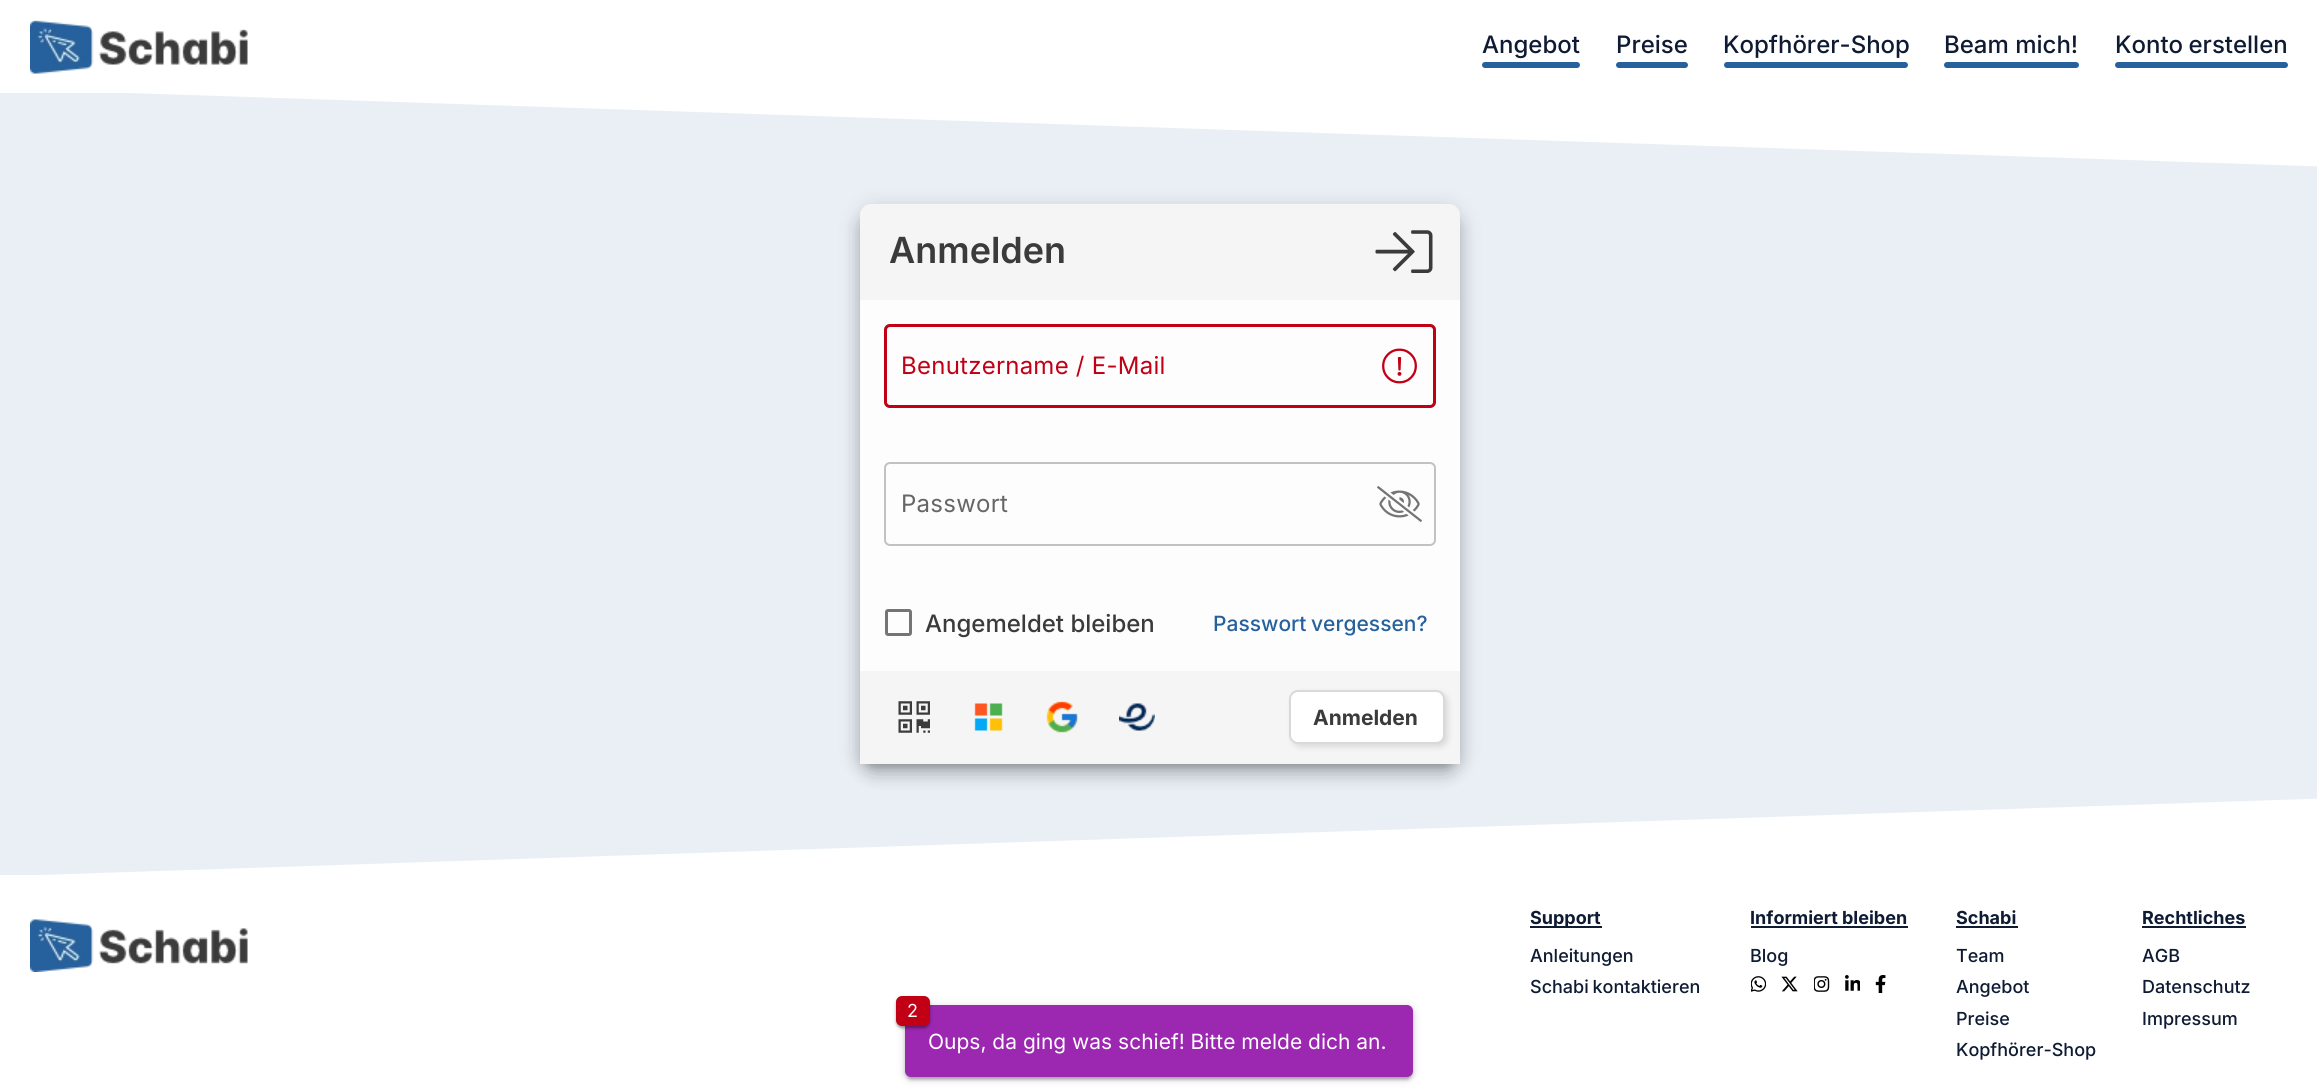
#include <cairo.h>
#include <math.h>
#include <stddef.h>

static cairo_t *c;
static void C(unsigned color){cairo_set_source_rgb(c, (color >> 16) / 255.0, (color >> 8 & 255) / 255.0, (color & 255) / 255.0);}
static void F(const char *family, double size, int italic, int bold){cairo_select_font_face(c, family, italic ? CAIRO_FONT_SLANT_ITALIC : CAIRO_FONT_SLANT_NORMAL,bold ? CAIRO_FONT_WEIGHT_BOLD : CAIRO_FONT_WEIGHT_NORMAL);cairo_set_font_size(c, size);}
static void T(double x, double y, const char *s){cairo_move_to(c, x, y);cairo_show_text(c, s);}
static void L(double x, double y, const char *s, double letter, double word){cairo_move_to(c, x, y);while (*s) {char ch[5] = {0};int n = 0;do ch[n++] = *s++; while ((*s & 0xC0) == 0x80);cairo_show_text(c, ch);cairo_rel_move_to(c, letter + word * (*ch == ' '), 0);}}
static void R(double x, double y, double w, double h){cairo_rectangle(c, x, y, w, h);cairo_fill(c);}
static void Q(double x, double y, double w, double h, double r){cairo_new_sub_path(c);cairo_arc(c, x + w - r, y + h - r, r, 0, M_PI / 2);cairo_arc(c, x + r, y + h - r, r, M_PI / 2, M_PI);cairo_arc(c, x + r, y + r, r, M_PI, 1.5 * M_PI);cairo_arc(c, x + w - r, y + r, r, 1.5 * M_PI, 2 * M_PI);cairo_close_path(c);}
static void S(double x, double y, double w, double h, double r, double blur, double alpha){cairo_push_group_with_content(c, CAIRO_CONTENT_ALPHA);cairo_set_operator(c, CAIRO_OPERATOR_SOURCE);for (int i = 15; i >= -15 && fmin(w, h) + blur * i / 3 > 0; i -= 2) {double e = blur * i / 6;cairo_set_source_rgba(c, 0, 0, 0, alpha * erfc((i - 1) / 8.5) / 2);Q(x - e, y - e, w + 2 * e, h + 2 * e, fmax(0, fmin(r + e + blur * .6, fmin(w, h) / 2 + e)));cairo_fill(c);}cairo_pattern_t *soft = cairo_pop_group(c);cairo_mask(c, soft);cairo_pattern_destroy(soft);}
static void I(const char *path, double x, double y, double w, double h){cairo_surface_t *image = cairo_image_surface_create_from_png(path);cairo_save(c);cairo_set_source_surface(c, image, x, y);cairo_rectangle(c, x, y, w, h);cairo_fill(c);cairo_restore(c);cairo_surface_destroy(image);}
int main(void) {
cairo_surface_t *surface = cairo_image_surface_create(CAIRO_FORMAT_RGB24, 2317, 1091);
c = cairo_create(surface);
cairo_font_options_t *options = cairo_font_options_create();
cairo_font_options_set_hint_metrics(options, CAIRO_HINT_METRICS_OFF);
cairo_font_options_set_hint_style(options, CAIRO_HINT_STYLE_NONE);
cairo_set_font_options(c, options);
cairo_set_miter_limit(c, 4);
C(0xffffff);
cairo_paint(c);
I("1.png",30,20,218,54);
F("Inter Medium",24,0,0);
C(0x0e1b33);
T(1482,53,"Angebot");
C(0x26619c);
Q(1482,62,98,6,3);
cairo_fill(c);
C(0x0e1b33);
T(1616,53,"Preise");
C(0x26619c);
Q(1616,62,72,6,3);
cairo_fill(c);
C(0x0e1b33);
T(1723,53,"Kopfhörer-Shop");
C(0x26619c);
Q(1724,62,184,6,3);
cairo_fill(c);
C(0x0e1b33);
T(1944,53,"Beam mich!");
C(0x26619c);
Q(1944,62,135,6,3);
cairo_fill(c);
C(0x0e1b33);
L(2115,53,"Konto erstellen",0,-1);
C(0x26619c);
Q(2115,62,173,6,3);
cairo_fill(c);
C(0xe9eff5);
R(0,93,2317,782);
C(0xffffff);
cairo_set_fill_rule(c,CAIRO_FILL_RULE_EVEN_ODD);
cairo_new_path(c);
cairo_move_to(c,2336,90);
cairo_line_to(c,39,90);
cairo_line_to(c,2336,167);
cairo_close_path(c);
cairo_fill(c);
cairo_save(c);
cairo_new_path(c);
cairo_move_to(c,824,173);
cairo_line_to(c,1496,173);
cairo_line_to(c,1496,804);
cairo_line_to(c,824,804);
cairo_close_path(c);
cairo_move_to(c,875,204);
cairo_line_to(c,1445,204);
cairo_curve_to(c,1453.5,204,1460,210.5,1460,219);
cairo_line_to(c,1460,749);
cairo_curve_to(c,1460,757.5,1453.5,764,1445,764);
cairo_line_to(c,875,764);
cairo_curve_to(c,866.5,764,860,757.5,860,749);
cairo_line_to(c,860,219);
cairo_curve_to(c,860,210.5,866.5,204,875,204);
cairo_close_path(c);
cairo_clip(c);
C(0x000000);
S(857,206,606,565,18,10.5,.12);
cairo_restore(c);
cairo_save(c);
cairo_new_path(c);
cairo_move_to(c,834,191);
cairo_line_to(c,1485,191);
cairo_line_to(c,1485,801);
cairo_line_to(c,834,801);
cairo_close_path(c);
cairo_move_to(c,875,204);
cairo_line_to(c,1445,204);
cairo_curve_to(c,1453.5,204,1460,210.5,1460,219);
cairo_line_to(c,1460,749);
cairo_curve_to(c,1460,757.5,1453.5,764,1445,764);
cairo_line_to(c,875,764);
cairo_curve_to(c,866.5,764,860,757.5,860,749);
cairo_line_to(c,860,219);
cairo_curve_to(c,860,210.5,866.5,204,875,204);
cairo_close_path(c);
cairo_clip(c);
C(0x000000);
S(858,215,603,562,17,7.5,.14);
cairo_restore(c);
cairo_save(c);
cairo_new_path(c);
cairo_move_to(c,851,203);
cairo_line_to(c,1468,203);
cairo_line_to(c,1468,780);
cairo_line_to(c,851,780);
cairo_close_path(c);
cairo_move_to(c,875,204);
cairo_line_to(c,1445,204);
cairo_curve_to(c,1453.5,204,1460,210.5,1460,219);
cairo_line_to(c,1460,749);
cairo_curve_to(c,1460,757.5,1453.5,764,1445,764);
cairo_line_to(c,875,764);
cairo_curve_to(c,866.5,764,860,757.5,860,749);
cairo_line_to(c,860,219);
cairo_curve_to(c,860,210.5,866.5,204,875,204);
cairo_close_path(c);
cairo_clip(c);
C(0x000000);
S(864,216,591,551,11,4,.2);
cairo_restore(c);
cairo_set_source_rgba(c,1,1,1,0.9);
Q(860,204,600,560,15);
cairo_fill(c);
C(0xf5f5f5);
cairo_new_path(c);
cairo_move_to(c,871,204);
cairo_line_to(c,1449,204);
cairo_curve_to(c,1455,204,1460,209,1460,215);
cairo_line_to(c,1460,300);
cairo_line_to(c,860,300);
cairo_line_to(c,860,215);
cairo_curve_to(c,860,209,865,204,871,204);
cairo_close_path(c);
cairo_fill(c);
F("Inter SemiBold",36,0,0);
C(0x3b3b3b);
T(889,263,"Anmelden");
I("2.png",1375,230,58,43);
Q(885,325,550,82,5);
C(0xc2c2c2);
cairo_stroke(c);
I("3.png",1382,348,35,36);
Q(885.5,325.5,549,81,4.5);
C(0xc10015);
cairo_set_line_width(c,3);
cairo_stroke(c);
F("Inter",24,0,0);
L(901,374,"Benutzername / E-Mail",.25,0);
Q(885,463,550,82,5);
C(0xc2c2c2);
cairo_set_line_width(c,2);
cairo_stroke(c);
C(0x666666);
L(901,512,"Passwort",.25,0);
I("4.png",1377,486,45,36);
Q(886.5,610.5,24,24,1.5);
C(0x747575);
cairo_set_line_width(c,3);
cairo_stroke(c);
F("Inter Medium",24,0,0);
C(0x3b3b3b);
T(925,632,"Angemeldet bleiben");
F("Inter Medium",21,0,0);
C(0x26619c);
L(1213,631,"Passwort vergessen?",0,-1);
C(0xf5f5f5);
R(860,671,600,93);
I("5.png",898,701,32,32);
I("6.png",974,703,29,28);
I("7.png",1046,701,32,32);
I("8.png",1119,703,36,28);
C(0x3b3b3b);
S(1292,693,156,54,9,3,.15);
C(0xffffff);
Q(1290,691,154,52,8);
cairo_fill_preserve(c);
C(0xd9d9d9);
cairo_set_line_width(c,2);
cairo_stroke(c);
F("Inter",21,0,1);
C(0x3b3b3b);
T(1313,725,"Anmelden");
C(0xffffff);
cairo_new_path(c);
cairo_move_to(c,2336,875);
cairo_line_to(c,39,875);
cairo_line_to(c,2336,798);
cairo_close_path(c);
cairo_fill(c);
I("9.png",30,919,218,53);
C(0x0e1b33);
R(1530,926,72,2);
F("Inter",18,0,1);
T(1530,924,"Support");
F("Inter Medium",18,0,0);
T(1530,962,"Anleitungen");
L(1530,993,"Schabi kontaktieren",0,-1);
F("Inter",18,0,1);
T(1750,924,"Informiert bleiben");
R(1751,926,157,2);
F("Inter Medium",18,0,0);
T(1750,962,"Blog");
I("10.png",1751,976,15,16);
I("11.png",1781,976,17,16);
I("12.png",1814,976,16,16);
I("13.png",1845,975,15,16);
I("14.png",1875,975,11,18);
F("Inter",18,0,1);
T(1956,924,"Schabi");
R(1956,926,62,2);
F("Inter Medium",18,0,0);
T(1956,962,"Team");
T(1956,993,"Angebot");
T(1956,1025,"Preise");
T(1956,1056,"Kopfhörer-Shop");
F("Inter",18,0,1);
T(2142,924,"Rechtliches");
R(2142,926,104,2);
F("Inter Medium",18,0,0);
T(2142,962,"AGB");
T(2142,993,"Datenschutz");
T(2142,1025,"Impressum");
C(0x000000);
S(908,1013,502,66,3,1,.12);
S(905,1008,508,72,6,1.5,.14);
S(905,1007,508,72,6,4,.2);
C(0x9c27b0);
Q(905,1005,508,72,6);
cairo_fill(c);
C(0x000000);
S(897,1001,32,27,5,1,.12);
S(896,998,34,30,6,1,.14);
S(896,998,34,30,6,2,.2);
C(0xc10015);
Q(896,996,34,30,6);
cairo_fill(c);
F("Inter",18,0,0);
C(0xffffff);
T(907,1017,"2");
F("Inter",21,0,0);
T(928,1049,"Oups, da ging was schief! Bitte melde dich an.");
cairo_surface_write_to_png(surface, "o.png");
cairo_font_options_destroy(options);
cairo_destroy(c);
cairo_surface_destroy(surface);
return 0;
}
